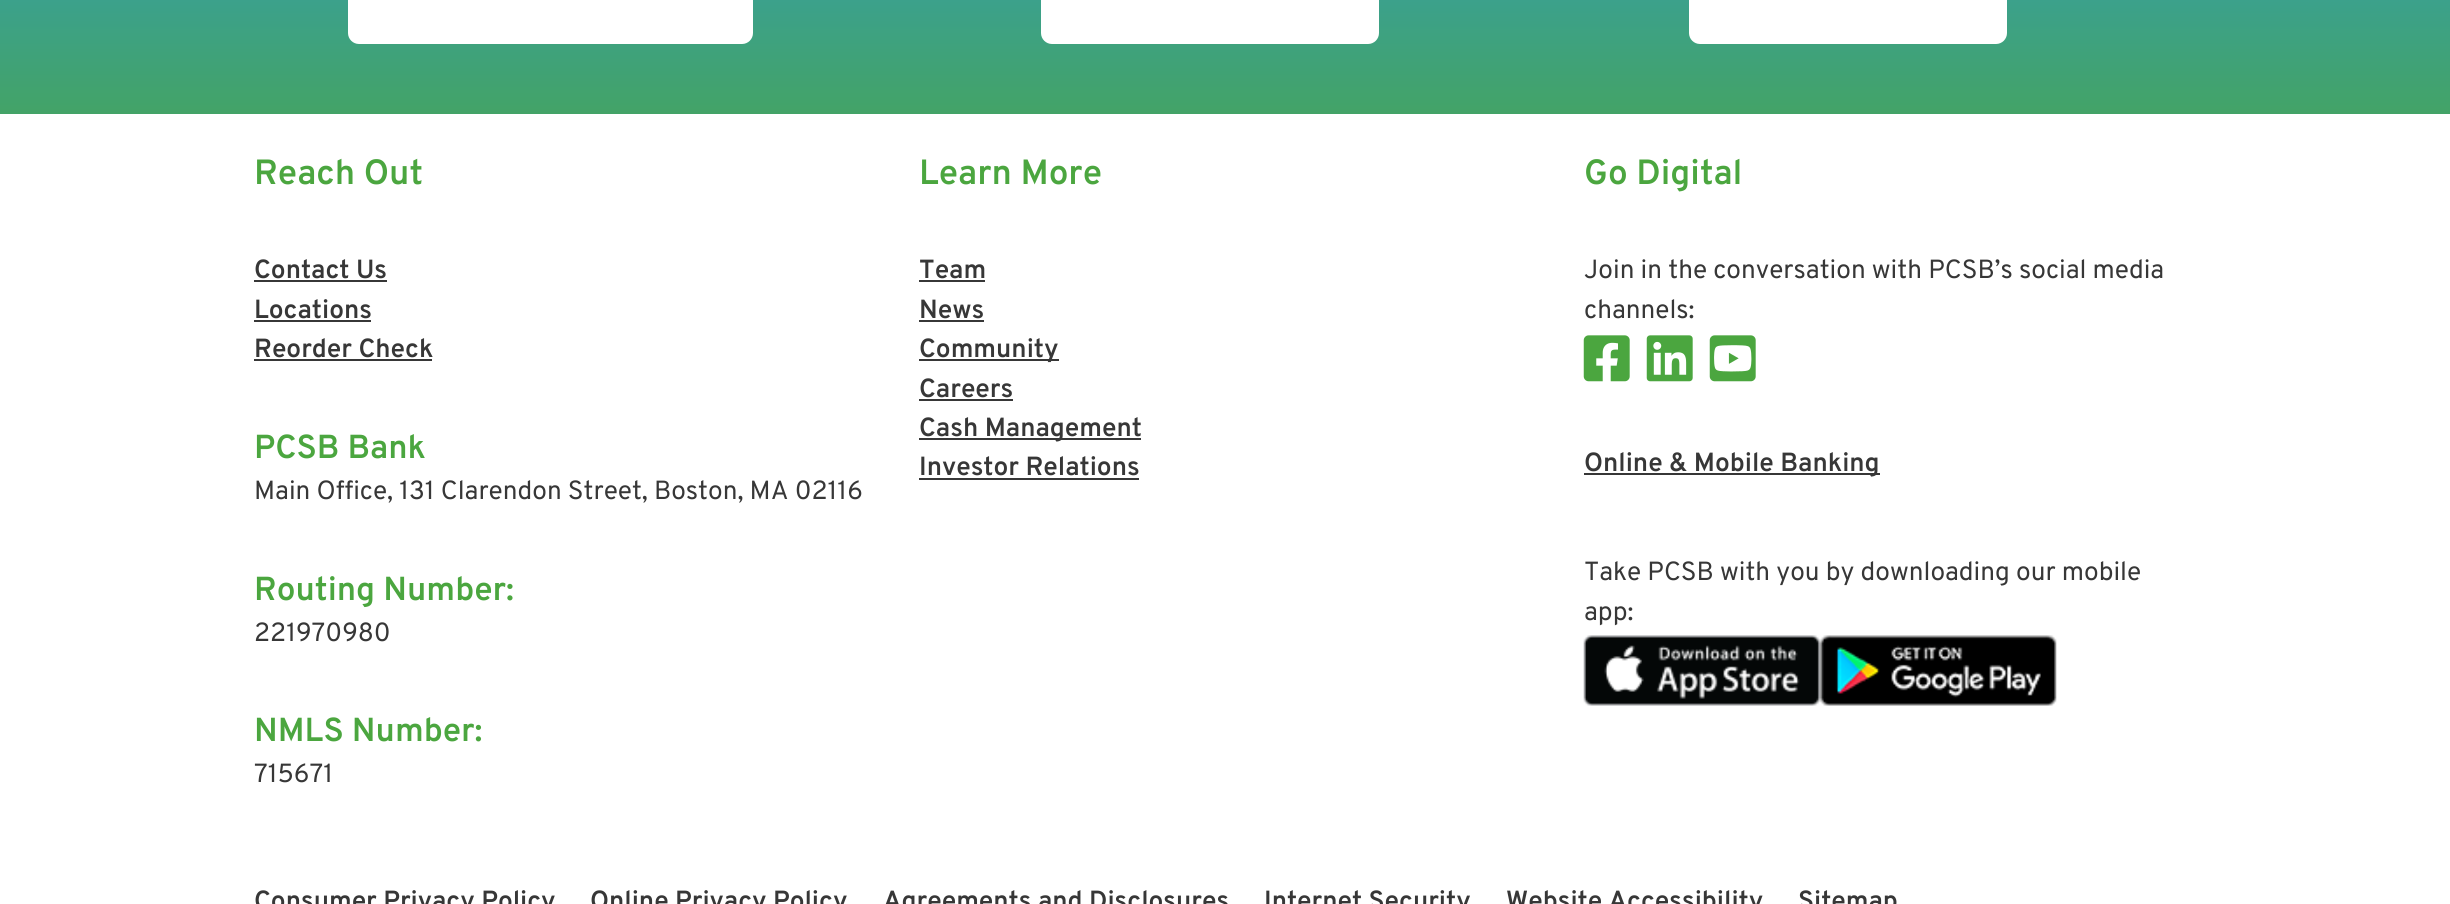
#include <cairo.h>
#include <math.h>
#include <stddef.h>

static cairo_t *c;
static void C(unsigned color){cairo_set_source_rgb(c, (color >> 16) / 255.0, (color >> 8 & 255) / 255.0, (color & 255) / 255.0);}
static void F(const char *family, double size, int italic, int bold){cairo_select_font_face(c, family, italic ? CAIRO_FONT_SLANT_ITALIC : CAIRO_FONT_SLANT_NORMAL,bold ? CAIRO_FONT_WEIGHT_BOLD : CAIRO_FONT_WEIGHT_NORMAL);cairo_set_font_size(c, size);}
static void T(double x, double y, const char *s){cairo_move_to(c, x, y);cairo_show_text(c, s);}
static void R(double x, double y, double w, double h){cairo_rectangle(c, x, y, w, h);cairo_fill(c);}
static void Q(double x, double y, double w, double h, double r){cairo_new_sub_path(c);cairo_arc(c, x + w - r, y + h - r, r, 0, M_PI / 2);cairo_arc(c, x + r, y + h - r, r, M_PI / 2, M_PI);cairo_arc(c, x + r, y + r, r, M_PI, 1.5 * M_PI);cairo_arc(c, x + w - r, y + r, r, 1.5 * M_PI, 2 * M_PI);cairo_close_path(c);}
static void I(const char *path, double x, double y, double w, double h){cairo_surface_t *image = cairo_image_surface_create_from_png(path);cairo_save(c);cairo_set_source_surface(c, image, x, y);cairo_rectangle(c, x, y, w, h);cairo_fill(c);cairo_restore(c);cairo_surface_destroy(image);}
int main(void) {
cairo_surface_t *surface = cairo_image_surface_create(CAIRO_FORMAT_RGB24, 2450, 904);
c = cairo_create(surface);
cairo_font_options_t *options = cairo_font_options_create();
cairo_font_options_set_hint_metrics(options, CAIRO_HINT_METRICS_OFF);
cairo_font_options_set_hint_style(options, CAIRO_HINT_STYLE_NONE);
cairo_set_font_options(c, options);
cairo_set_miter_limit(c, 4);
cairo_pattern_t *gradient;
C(0xffffff);
cairo_paint(c);
gradient = cairo_pattern_create_linear(1225,-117,1225,114);
cairo_pattern_add_color_stop_rgba(gradient,0,0.204,0.624,0.69,1);
cairo_pattern_add_color_stop_rgba(gradient,1,0.263,0.639,0.404,1);
cairo_pattern_add_color_stop_rgba(gradient,1,0.204,0.227,0.251,1);
cairo_set_source(c,gradient);
cairo_pattern_destroy(gradient);
R(0,0,2450,114);
C(0xffffff);
Q(350,-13,401,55,9);
cairo_fill_preserve(c);
cairo_set_line_width(c,4);
cairo_stroke(c);
Q(1043,-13,334,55,9);
cairo_fill_preserve(c);
cairo_stroke(c);
Q(1691,-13,314,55,9);
cairo_fill_preserve(c);
cairo_stroke(c);
F("Overpass SemiBold",35,0,0);
C(0x4ba63f);
T(254,184,"Reach Out");
F("Overpass SemiBold",26.25,0,0);
C(0x373737);
T(254,278,"Contact Us");
R(254,280,133,2);
T(254,318,"Locations");
R(254,320,117,2);
T(254,357,"Reorder Check");
R(254,359,178,2);
F("Overpass SemiBold",33.25,0,0);
C(0x4ba63f);
T(254,458,"PCSB Bank");
F("Overpass",26.25,0,0);
C(0x373737);
T(254,499,"Main Office, 131 Clarendon Street, Boston, MA 02116");
F("Overpass SemiBold",33.25,0,0);
C(0x4ba63f);
T(254,600,"Routing Number:");
F("Overpass",26.25,0,0);
C(0x373737);
T(254,641,"221970980");
F("Overpass SemiBold",33.25,0,0);
C(0x4ba63f);
T(254,741,"NMLS Number:");
F("Overpass",26.25,0,0);
C(0x373737);
T(254,782,"715671");
F("Overpass SemiBold",35,0,0);
C(0x4ba63f);
T(919,184,"Learn More");
F("Overpass SemiBold",26.25,0,0);
C(0x373737);
T(919,278,"Team");
R(919,280,66,2);
T(919,318,"News");
R(919,320,65,2);
R(919,359,140,2);
T(919,357,"Community");
T(919,397,"Careers");
R(919,399,94,2);
R(919,438,222,2);
T(919,436,"Cash Management");
T(919,475,"Investor Relations");
R(919,478,220,2);
F("Overpass SemiBold",35,0,0);
C(0x4ba63f);
T(1584,184,"Go Digital");
F("Overpass",26.25,0,0);
C(0x373737);
T(1584,278,"Join in the conversation with PCSB’s social media");
T(1584,318,"channels:");
I("1.png",1583,335,47,47);
I("2.png",1646,335,47,47);
I("3.png",1709,335,47,47);
R(1584,473,296,2);
F("Overpass SemiBold",26.25,0,0);
T(1584,471,"Online & Mobile Banking");
F("Overpass",26.25,0,0);
T(1584,580,"Take PCSB with you by downloading our mobile");
T(1584,620,"app:");
I("4.png",1583,635,237,71);
I("5.png",1820,635,237,71);
F("Overpass SemiBold",26.25,0,0);
T(254,909,"Consumer Privacy Policy");
T(590,909,"Online Privacy Policy");
T(883,909,"Agreements and Disclosures");
T(1264,909,"Internet Security");
T(1506,909,"Website Accessibility");
T(1798,909,"Sitemap");
cairo_surface_write_to_png(surface, "o.png");
cairo_font_options_destroy(options);
cairo_destroy(c);
cairo_surface_destroy(surface);
return 0;
}
